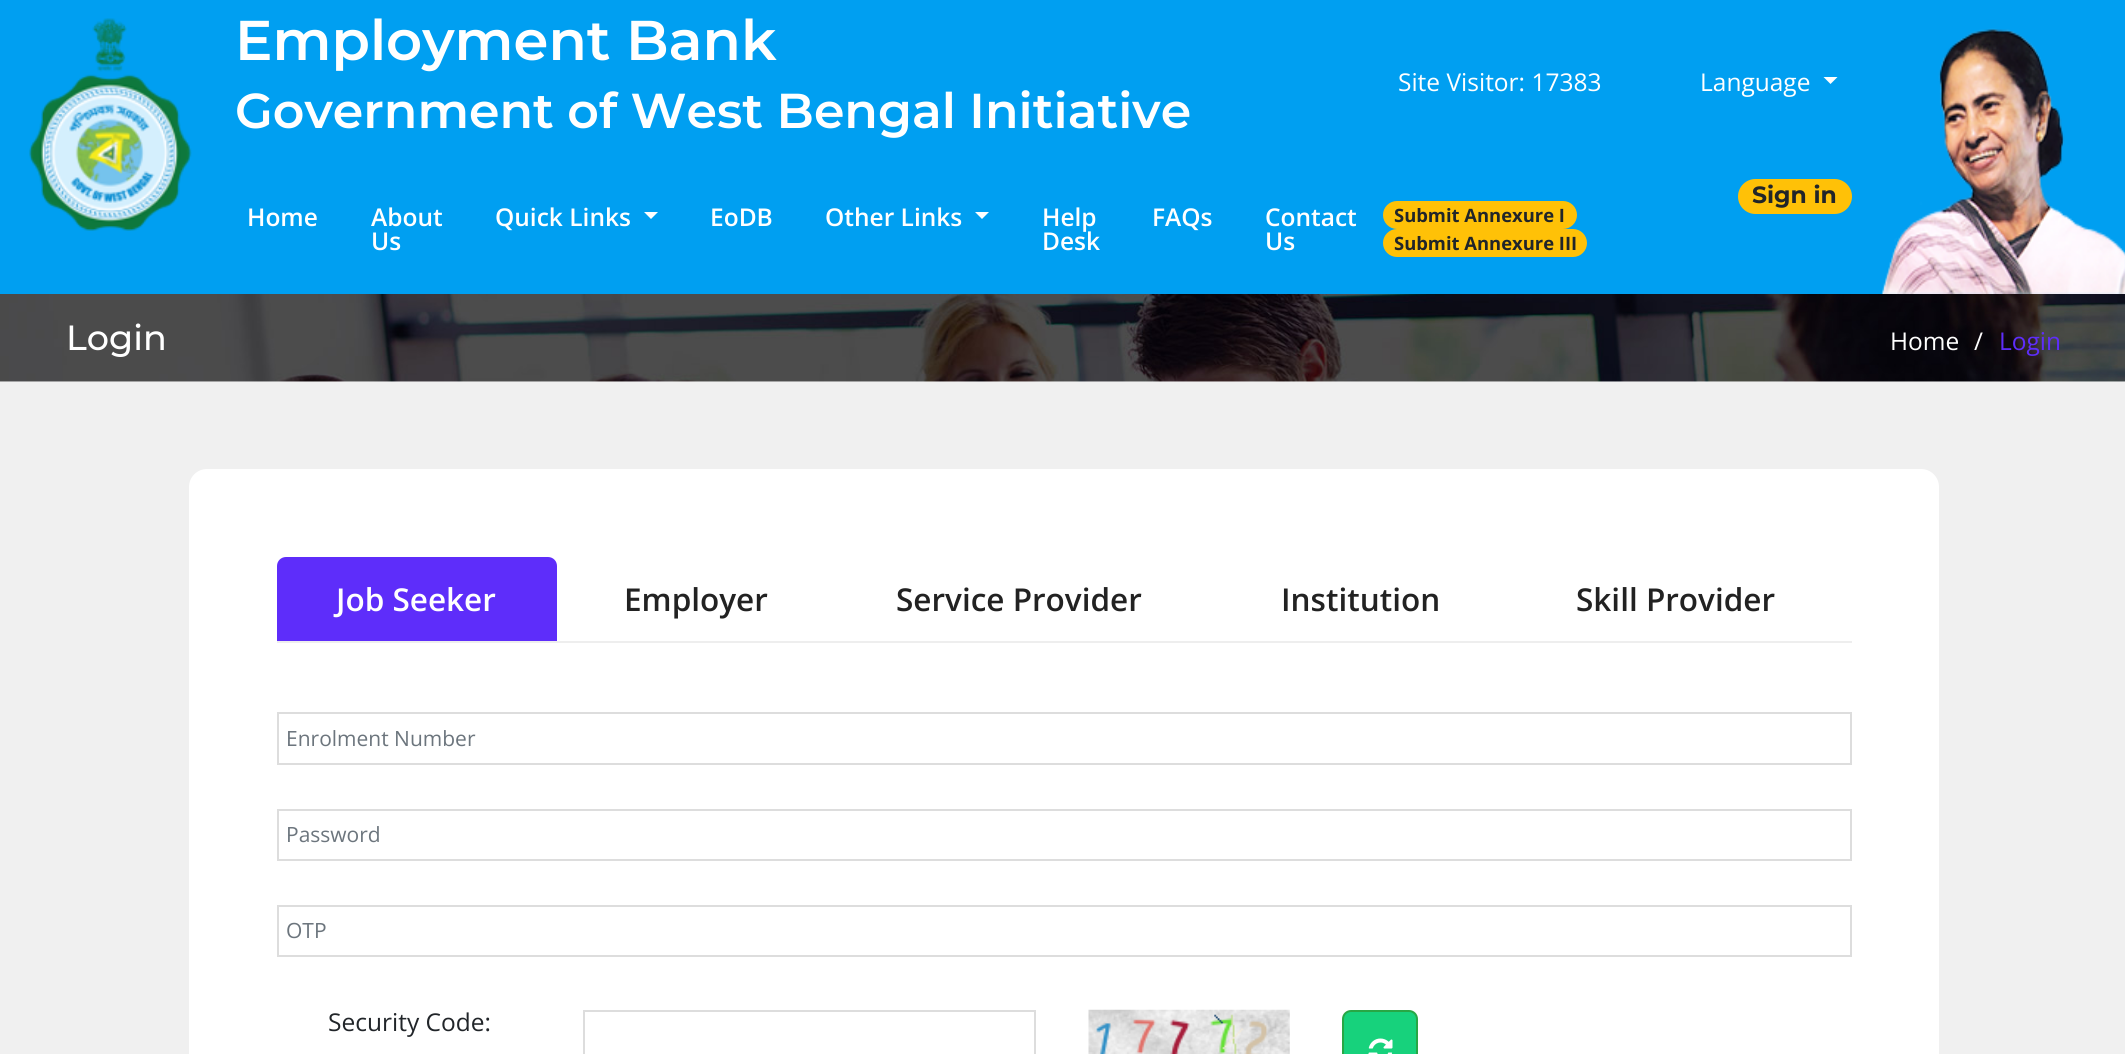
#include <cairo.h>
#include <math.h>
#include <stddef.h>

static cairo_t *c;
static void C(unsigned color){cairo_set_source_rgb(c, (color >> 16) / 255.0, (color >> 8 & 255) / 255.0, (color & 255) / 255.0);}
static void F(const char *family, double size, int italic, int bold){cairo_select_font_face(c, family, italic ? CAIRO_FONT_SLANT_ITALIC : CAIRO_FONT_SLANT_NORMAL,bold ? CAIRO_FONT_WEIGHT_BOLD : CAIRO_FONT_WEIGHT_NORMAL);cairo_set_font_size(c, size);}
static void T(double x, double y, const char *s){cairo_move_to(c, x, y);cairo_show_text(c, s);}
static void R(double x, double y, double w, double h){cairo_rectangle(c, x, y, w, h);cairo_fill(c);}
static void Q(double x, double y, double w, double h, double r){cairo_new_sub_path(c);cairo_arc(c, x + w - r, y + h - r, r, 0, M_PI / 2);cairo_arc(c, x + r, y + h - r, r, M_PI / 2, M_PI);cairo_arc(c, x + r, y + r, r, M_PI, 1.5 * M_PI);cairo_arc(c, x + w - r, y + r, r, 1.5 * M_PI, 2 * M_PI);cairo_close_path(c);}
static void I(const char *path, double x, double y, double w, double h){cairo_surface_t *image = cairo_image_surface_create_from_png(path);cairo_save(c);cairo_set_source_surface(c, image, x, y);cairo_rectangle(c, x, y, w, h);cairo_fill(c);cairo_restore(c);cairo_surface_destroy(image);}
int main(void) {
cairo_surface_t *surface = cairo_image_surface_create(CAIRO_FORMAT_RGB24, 2125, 1054);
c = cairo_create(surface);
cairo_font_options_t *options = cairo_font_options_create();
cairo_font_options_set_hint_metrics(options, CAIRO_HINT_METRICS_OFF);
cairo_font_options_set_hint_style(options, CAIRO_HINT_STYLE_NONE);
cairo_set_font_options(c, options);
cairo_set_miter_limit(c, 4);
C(0xffffff);
cairo_paint(c);
C(0x009ff1);
R(0,0,2125,294);
I("1.png",29,18,163,213);
F("Montserrat SemiBold",56,0,0);
C(0xffffff);
T(235,60,"Employment Bank");
F("Montserrat SemiBold",49,0,0);
T(235,128,"Government of West Bengal Initiative");
F("Open Sans",24.5,0,0);
T(1398,91,"Site Visitor: 17383");
T(1700,91,"Language");
cairo_new_path(c);
cairo_move_to(c,1823.5,77);
cairo_line_to(c,1837.5,77);
cairo_line_to(c,1830.5,84);
cairo_close_path(c);
cairo_fill(c);
C(0xffc107);
Q(1738,179,114,35,17.5);
cairo_fill(c);
F("Montserrat",23.5,0,1);
C(0x212529);
T(1752,203,"Sign in");
F("Open Sans SemiBold",24.5,0,0);
C(0xffffff);
T(247,226,"Home");
T(371,226,"About");
T(371,250,"Us");
T(495,226,"Quick Links");
cairo_new_path(c);
cairo_move_to(c,644,212);
cairo_line_to(c,658,212);
cairo_line_to(c,651,219);
cairo_close_path(c);
cairo_fill(c);
T(710,226,"EoDB");
T(825,226,"Other Links");
cairo_new_path(c);
cairo_move_to(c,975,212);
cairo_line_to(c,989,212);
cairo_line_to(c,982,219);
cairo_close_path(c);
cairo_fill(c);
T(1042,226,"Help");
T(1042,250,"Desk");
T(1152,226,"FAQs");
T(1265,226,"Contact");
T(1265,250,"Us");
C(0xffc107);
Q(1383,201,194,28,14);
cairo_fill(c);
F("Open Sans",18.4,0,1);
C(0x212529);
T(1394,222,"Submit Annexure I");
C(0xffc107);
Q(1383,229,204,28,14);
cairo_fill(c);
C(0x212529);
T(1394,250,"Submit Annexure III");
I("2.png",1881,28,244,266);
I("3.png",0,294,2125,88);
F("Montserrat Medium",35,0,0);
C(0xffffff);
T(66,350,"Login");
F("Open Sans",24.5,0,0);
T(1890,350,"Home");
T(1974,350,"/");
C(0x5e2dfa);
T(1999,350,"Login");
C(0xf0f0f0);
R(0,382,2125,672);
C(0xffffff);
Q(189,469,1750,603,18);
cairo_fill(c);
C(0xeeeeee);
R(277,641,1575,2);
C(0x5e2dfa);
cairo_new_path(c);
cairo_move_to(c,286,557);
cairo_line_to(c,548,557);
cairo_curve_to(c,553,557,557,561,557,566);
cairo_line_to(c,557,641);
cairo_line_to(c,277,641);
cairo_line_to(c,277,566);
cairo_curve_to(c,277,561,281,557,286,557);
cairo_close_path(c);
cairo_fill(c);
F("Open Sans SemiBold",31.5,0,0);
C(0xffffff);
T(336,611,"Job Seeker");
C(0x222222);
T(624,611,"Employer");
T(896,611,"Service Provider");
T(1281,611,"Institution");
T(1576,611,"Skill Provider");
cairo_rectangle(c,278,713,1573,51);
C(0xdddddd);
cairo_stroke(c);
F("Open Sans",21,0,0);
C(0x6c757d);
T(286,746,"Enrolment Number");
cairo_rectangle(c,278,810,1573,50);
C(0xdddddd);
cairo_stroke(c);
C(0x6c757d);
T(286,842,"Password");
cairo_rectangle(c,278,906,1573,50);
C(0xdddddd);
cairo_stroke(c);
C(0x6c757d);
T(286,938,"OTP");
F("Open Sans",24.5,0,0);
C(0x212529);
T(328,1031,"Security Code:");
cairo_rectangle(c,584,1011,451,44);
C(0xdddddd);
cairo_stroke(c);
I("4.png",1088,1009,202,45);
C(0x17d27c);
Q(1343,1011,74,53,8);
cairo_fill_preserve(c);
C(0x28a745);
cairo_stroke(c);
I("5.png",1368,1038,25,16);
cairo_surface_write_to_png(surface, "o.png");
cairo_font_options_destroy(options);
cairo_destroy(c);
cairo_surface_destroy(surface);
return 0;
}
